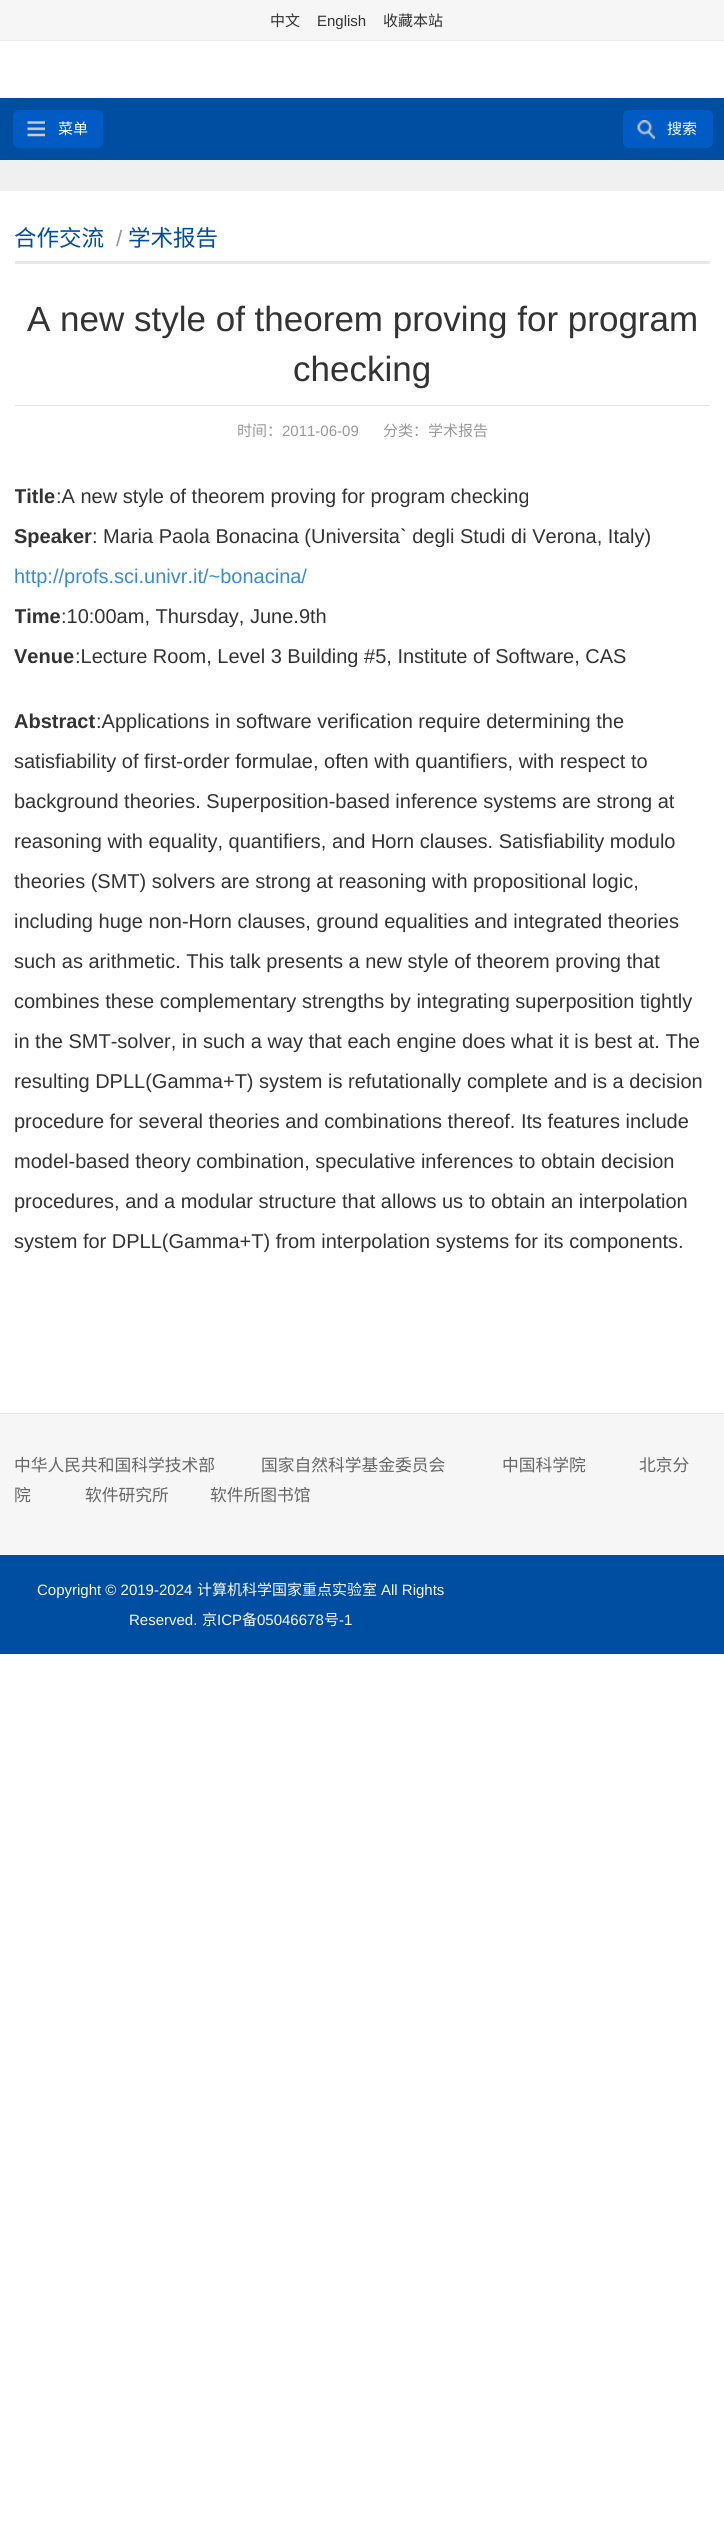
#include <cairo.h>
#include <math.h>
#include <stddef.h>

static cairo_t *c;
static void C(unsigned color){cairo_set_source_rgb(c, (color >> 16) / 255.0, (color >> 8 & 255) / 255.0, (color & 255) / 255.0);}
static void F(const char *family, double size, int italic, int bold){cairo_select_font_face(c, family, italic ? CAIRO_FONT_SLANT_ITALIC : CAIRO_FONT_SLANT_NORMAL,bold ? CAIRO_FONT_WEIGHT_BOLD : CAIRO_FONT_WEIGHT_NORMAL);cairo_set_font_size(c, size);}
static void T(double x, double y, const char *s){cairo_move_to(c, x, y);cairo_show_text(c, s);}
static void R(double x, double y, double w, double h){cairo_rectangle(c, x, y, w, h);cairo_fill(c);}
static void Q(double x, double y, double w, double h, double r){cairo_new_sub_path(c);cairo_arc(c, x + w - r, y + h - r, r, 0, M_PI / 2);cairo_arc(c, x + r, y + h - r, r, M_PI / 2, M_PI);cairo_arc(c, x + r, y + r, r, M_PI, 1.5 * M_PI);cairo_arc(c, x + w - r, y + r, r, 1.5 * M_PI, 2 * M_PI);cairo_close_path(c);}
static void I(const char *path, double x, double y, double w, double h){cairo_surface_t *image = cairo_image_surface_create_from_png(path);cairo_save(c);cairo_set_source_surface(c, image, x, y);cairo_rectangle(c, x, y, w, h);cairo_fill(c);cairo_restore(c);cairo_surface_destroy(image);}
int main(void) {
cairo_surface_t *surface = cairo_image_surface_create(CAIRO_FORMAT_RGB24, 724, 2526);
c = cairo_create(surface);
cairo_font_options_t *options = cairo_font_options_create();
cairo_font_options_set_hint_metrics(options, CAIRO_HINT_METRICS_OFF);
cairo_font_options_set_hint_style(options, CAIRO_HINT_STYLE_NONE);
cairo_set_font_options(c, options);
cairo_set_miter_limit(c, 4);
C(0xffffff);
cairo_paint(c);
C(0xf6f6f6);
R(0,0,724,40);
C(0xeeeeee);
R(0,40,724,1);
F("Noto Sans CJK SC",15,0,0);
C(0x333333);
T(270,26,"中文");
F("Liberation Sans",15,0,0);
T(317,26,"English");
F("Noto Sans CJK SC",15,0,0);
T(383,26,"收藏本站");
C(0x004ea2);
R(0,98,724,62);
C(0x005cc4);
Q(13,110,90,38,6);
cairo_fill(c);
I("1.png",27,121,18,16);
C(0xffffff);
T(58,134,"菜单");
C(0x005cc4);
Q(623,110,90,38,6);
cairo_fill(c);
I("2.png",637,120,18,19);
C(0xffffff);
T(667,134,"搜索");
C(0xf0f0f0);
R(0,160,724,31);
C(0xe8e8e8);
R(15,261,695,3);
F("Noto Sans CJK SC",22.5,0,0);
C(0x004ea2);
T(14,246,"合作交流");
F("Liberation Sans",22.5,0,0);
C(0x999999);
T(116,246,"/");
F("Noto Sans CJK SC",22.5,0,0);
C(0x004ea2);
T(128,246,"学术报告");
C(0xe6e6e6);
R(15,405,695,1);
F("Liberation Sans",35,0,0);
C(0x333333);
T(27,331,"A new style of theorem proving for program");
T(293,381,"checking");
F("Noto Sans CJK SC",15,0,0);
C(0x999999);
T(237,436,"时间：");
F("Liberation Sans",15,0,0);
T(282,436,"2011-06-09");
F("Noto Sans CJK SC",15,0,0);
T(383,436,"分类：学术报告");
cairo_save(c);
cairo_rectangle(c,15,295,695,993);
cairo_clip(c);
F("Liberation Sans",20,0,1);
C(0x333333);
T(14,503,"Title");
cairo_restore(c);
F("Liberation Sans",20,0,0);
C(0x333333);
T(56,503,":A new style of theorem proving for program checking");
F("Liberation Sans",20,0,1);
T(14,543,"Speaker");
F("Liberation Sans",20,0,0);
T(92,543,": Maria Paola Bonacina (Universita` degli Studi di Verona, Italy)");
C(0x388cd6);
T(14,583,"http://profs.sci.univr.it/~bonacina/");
cairo_save(c);
cairo_rectangle(c,15,295,695,993);
cairo_clip(c);
F("Liberation Sans",20,0,1);
C(0x333333);
T(14,623,"Time");
cairo_restore(c);
C(0x333333);
T(61,623,":10:00am, Thursday, June.9th");
F("Liberation Sans",20,0,1);
T(14,663,"Venue");
F("Liberation Sans",20,0,0);
T(75,663,":Lecture Room, Level 3 Building #5, Institute of Software, CAS");
F("Liberation Sans",20,0,1);
T(14,728,"Abstract");
F("Liberation Sans",20,0,0);
T(96,728,":Applications in software verification require determining the");
T(14,768,"satisfiability of first-order formulae, often with quantifiers, with respect to");
T(14,808,"background theories. Superposition-based inference systems are strong at");
T(14,848,"reasoning with equality, quantifiers, and Horn clauses. Satisfiability modulo");
T(14,888,"theories (SMT) solvers are strong at reasoning with propositional logic,");
T(14,928,"including huge non-Horn clauses, ground equalities and integrated theories");
T(14,968,"such as arithmetic. This talk presents a new style of theorem proving that");
T(14,1008,"combines these complementary strengths by integrating superposition tightly");
T(14,1048,"in the SMT-solver, in such a way that each engine does what it is best at. The");
T(14,1088,"resulting DPLL(Gamma+T) system is refutationally complete and is a decision");
T(14,1128,"procedure for several theories and combinations thereof. Its features include");
T(14,1168,"model-based theory combination, speculative inferences to obtain decision");
T(14,1208,"procedures, and a modular structure that allows us to obtain an interpolation");
T(14,1248,"system for DPLL(Gamma+T) from interpolation systems for its components.");
C(0xf6f6f6);
R(0,1414,724,141);
C(0xe8e8e8);
R(0,1413,724,1);
F("Noto Sans CJK SC",16.75,0,0);
C(0x666666);
T(14,1471,"中华人民共和国科学技术部");
T(261,1471,"国家自然科学基金委员会");
T(502,1471,"中国科学院");
T(639,1471,"北京分");
T(14,1501,"院");
T(85,1501,"软件研究所");
T(210,1501,"软件所图书馆");
C(0x004ea2);
R(0,1555,724,99);
F("Liberation Sans",15,0,0);
C(0xf9f9f9);
T(37,1595,"Copyright © 2019-2024");
F("Noto Sans CJK SC",15,0,0);
T(197,1595,"计算机科学国家重点实验室");
F("Liberation Sans",15,0,0);
T(381,1595,"All Rights");
T(129,1625,"Reserved.");
F("Noto Sans CJK SC",15,0,0);
T(202,1625,"京");
F("Liberation Sans",15,0,0);
T(217,1625,"ICP");
F("Noto Sans CJK SC",15,0,0);
T(242,1625,"备");
F("Liberation Sans",15,0,0);
T(257,1625,"05046678");
F("Noto Sans CJK SC",15,0,0);
T(324,1625,"号");
F("Liberation Sans",15,0,0);
T(339,1625,"-1");
cairo_surface_write_to_png(surface, "o.png");
cairo_font_options_destroy(options);
cairo_destroy(c);
cairo_surface_destroy(surface);
return 0;
}
